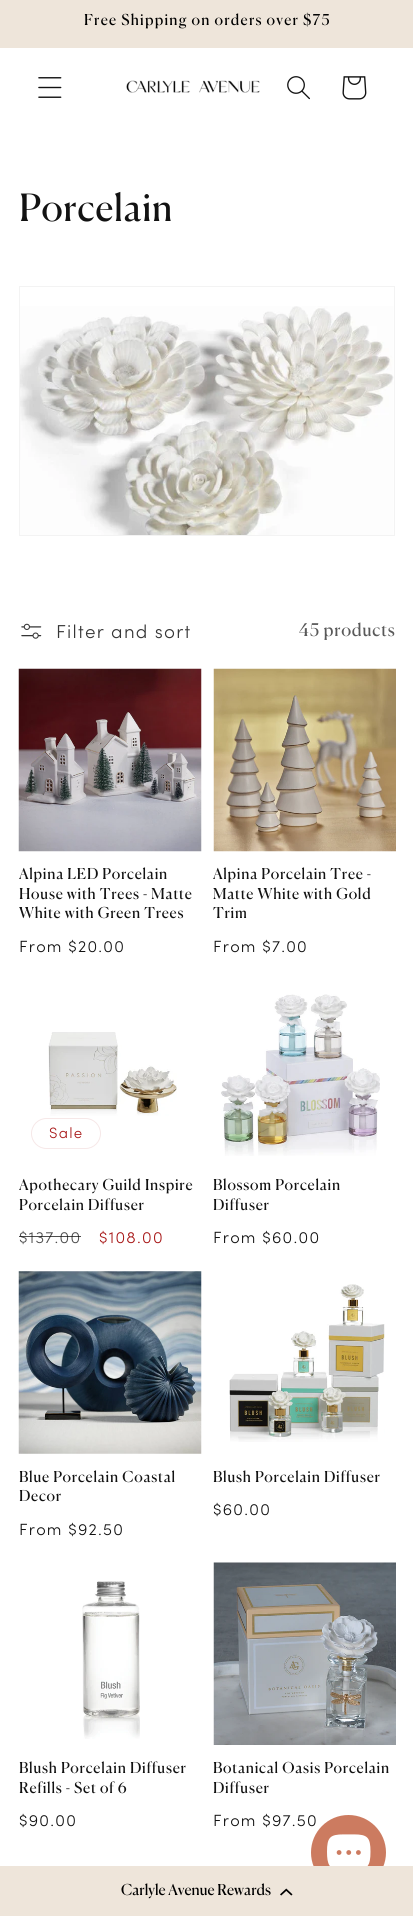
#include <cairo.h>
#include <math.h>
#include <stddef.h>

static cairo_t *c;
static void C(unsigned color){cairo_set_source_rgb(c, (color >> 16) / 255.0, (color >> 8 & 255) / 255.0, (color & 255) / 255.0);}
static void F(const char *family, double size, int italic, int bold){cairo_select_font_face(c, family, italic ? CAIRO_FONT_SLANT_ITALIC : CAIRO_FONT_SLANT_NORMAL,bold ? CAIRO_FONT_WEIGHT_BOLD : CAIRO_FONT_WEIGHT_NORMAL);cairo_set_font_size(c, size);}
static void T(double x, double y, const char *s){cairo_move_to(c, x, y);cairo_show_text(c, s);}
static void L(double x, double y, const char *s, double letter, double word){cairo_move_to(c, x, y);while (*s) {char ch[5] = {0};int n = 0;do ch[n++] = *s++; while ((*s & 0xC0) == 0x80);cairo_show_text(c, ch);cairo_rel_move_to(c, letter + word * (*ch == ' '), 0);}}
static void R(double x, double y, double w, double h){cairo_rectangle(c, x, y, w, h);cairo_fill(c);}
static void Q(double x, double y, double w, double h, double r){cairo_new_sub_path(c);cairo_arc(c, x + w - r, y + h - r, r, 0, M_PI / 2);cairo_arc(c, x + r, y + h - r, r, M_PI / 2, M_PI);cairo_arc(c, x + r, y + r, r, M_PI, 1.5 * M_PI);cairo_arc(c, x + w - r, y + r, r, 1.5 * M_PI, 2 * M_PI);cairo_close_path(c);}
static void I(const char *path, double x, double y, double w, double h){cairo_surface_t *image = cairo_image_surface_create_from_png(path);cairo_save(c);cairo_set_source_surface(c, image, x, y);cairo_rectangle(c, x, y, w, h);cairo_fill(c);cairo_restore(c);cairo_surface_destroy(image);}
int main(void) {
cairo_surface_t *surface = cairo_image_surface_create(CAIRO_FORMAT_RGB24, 413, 1916);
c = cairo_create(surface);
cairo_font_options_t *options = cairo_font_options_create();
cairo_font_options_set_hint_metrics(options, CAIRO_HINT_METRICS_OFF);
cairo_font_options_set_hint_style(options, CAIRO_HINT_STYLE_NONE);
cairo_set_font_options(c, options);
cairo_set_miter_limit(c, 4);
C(0xffffff);
cairo_paint(c);
C(0xeee5da);
R(0,0,413,48);
F("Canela",15,0,0);
C(0x000000);
L(84,25,"Free Shipping on orders over $75",1.25,0);
I("1.png",38,77,24,21);
I("2.png",126,80,134,13);
I("3.png",287,76,23,24);
I("4.png",342,76,25,24);
F("Canela",37.5,0,0);
C(0x121212);
L(19,221,"Porcelain",.75,0);
cairo_rectangle(c,19.5,286.5,375,249);
C(0xf3f3f3);
cairo_set_line_width(c,1);
cairo_stroke(c);
I("5.png",20,306,374,229);
I("6.png",21,623,21,16);
F("Sofia Light",18.75,0,0);
C(0x363636);
L(56,638,"Filter and sort",1.25,0);
F("Canela",17.5,0,0);
C(0x595959);
L(299,636,"45 products",.75,0);
I("7.png",18,668,184,184);
F("Canela",15,0,0);
C(0x121212);
L(19,879,"Alpina LED Porcelain",.75,0);
L(19,899,"House with Trees - Matte",.75,0);
L(19,918,"White with Green Trees",.75,0);
F("Sofia Light",16.25,0,0);
L(19,952,"From $20.00",1.25,0);
I("8.png",213,668,183,184);
F("Canela",15,0,0);
L(213,879,"Alpina Porcelain Tree -",.75,0);
L(213,899,"Matte White with Gold",.75,0);
L(213,918,"Trim",.75,0);
F("Sofia Light",16.25,0,0);
L(213,952,"From $7.00",1.25,0);
I("9.png",48,1032,129,84);
Q(31.5,1118.5,69,30,15);
C(0xf6e8e8);
cairo_stroke(c);
F("Sofia Light",15,0,0);
C(0xa71616);
L(49,1138,"Sale",1.25,0);
F("Canela",15,0,0);
C(0x121212);
L(19,1190,"Apothecary Guild Inspire",.75,0);
L(19,1210,"Porcelain Diffuser",.75,0);
F("Sofia Light",16.25,0,0);
C(0x4d4d4d);
L(19,1243,"$137.00",1.25,0);
cairo_set_source_rgba(c,0.071,0.071,0.071,0.75);
R(19,1236,62,1);
C(0xa71616);
L(99,1243,"$108.00",1.25,0);
I("10.png",221,994,159,162);
F("Canela",15,0,0);
C(0x121212);
L(213,1190,"Blossom Porcelain",.75,0);
L(213,1210,"Diffuser",.75,0);
F("Sofia Light",16.25,0,0);
L(213,1243,"From $60.00",1.25,0);
I("11.png",18,1271,184,183);
F("Canela",15,0,0);
L(19,1482,"Blue Porcelain Coastal",.75,0);
L(19,1501,"Decor",.75,0);
F("Sofia Light",16.25,0,0);
L(19,1535,"From $92.50",1.25,0);
I("12.png",229,1284,156,158);
F("Canela",15,0,0);
L(213,1482,"Blush Porcelain Diffuser",.75,0);
F("Sofia Light",16.25,0,0);
L(213,1515,"$60.00",1.25,0);
I("13.png",82,1581,58,158);
F("Canela",15,0,0);
L(19,1773,"Blush Porcelain Diffuser",.75,0);
L(19,1793,"Refills - Set of 6",.75,0);
F("Sofia Light",16.25,0,0);
L(19,1826,"$90.00",1.25,0);
I("14.png",213,1562,183,183);
F("Canela",15,0,0);
L(213,1773,"Botanical Oasis Porcelain",.75,0);
L(213,1793,"Diffuser",.75,0);
F("Sofia Light",16.25,0,0);
L(213,1826,"From $97.50",1.25,0);
C(0xcc7b60);
cairo_new_path(c);
cairo_arc(c,348.5,1852.5,37.5,0,2 * M_PI);
cairo_fill(c);
C(0xeee5da);
R(0,1866,413,50);
F("Canela",15,0,0);
C(0x000000);
T(121,1895,"Carlyle Avenue Rewards");
I("15.png",280,1888,13,8);
I("16.png",327,1834,44,32);
cairo_surface_write_to_png(surface, "o.png");
cairo_font_options_destroy(options);
cairo_destroy(c);
cairo_surface_destroy(surface);
return 0;
}
